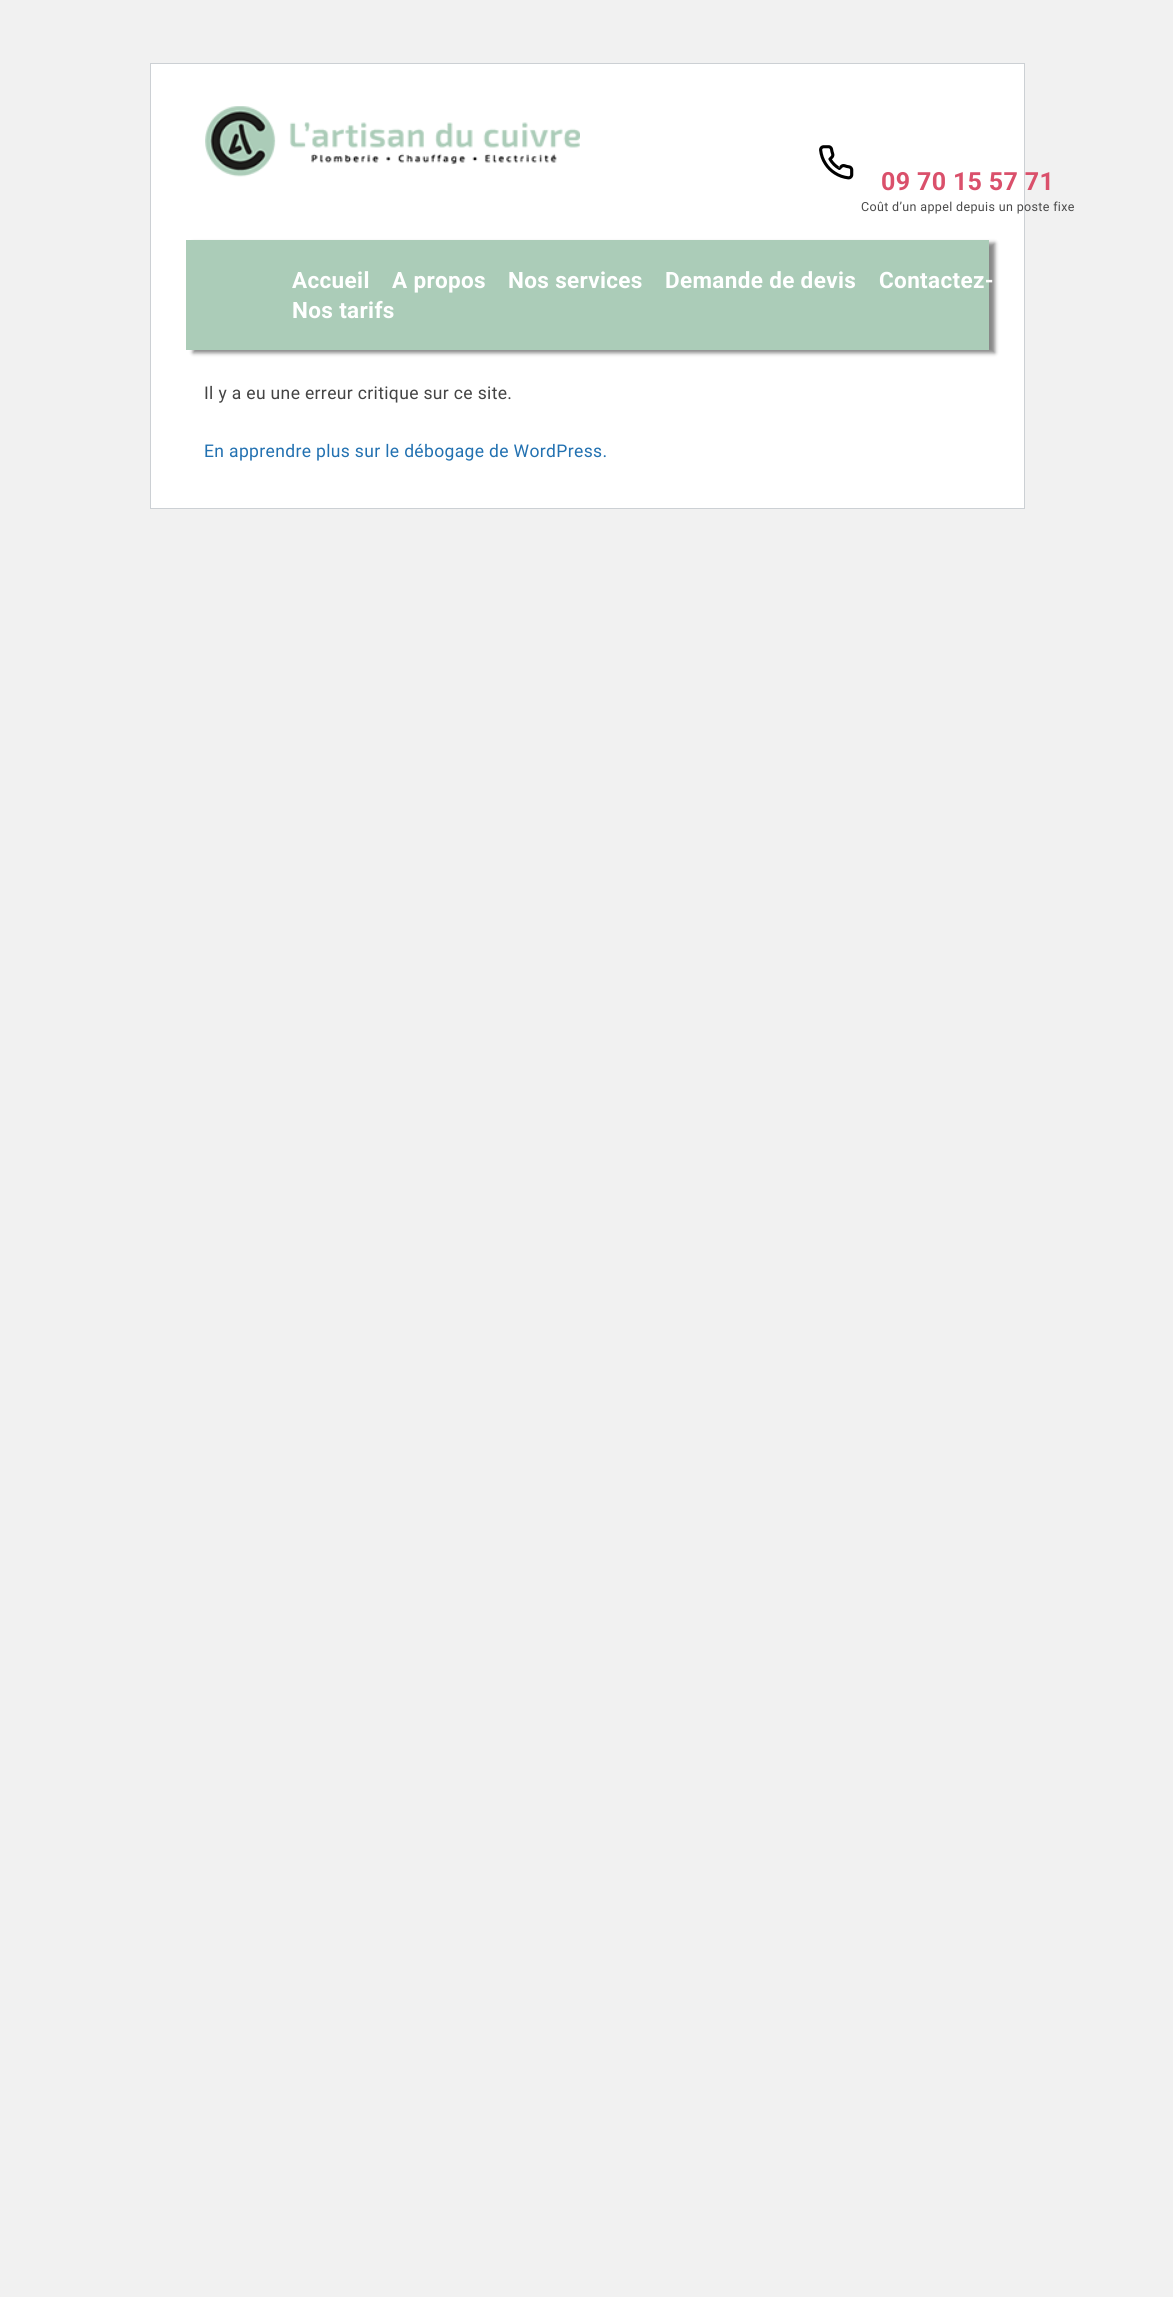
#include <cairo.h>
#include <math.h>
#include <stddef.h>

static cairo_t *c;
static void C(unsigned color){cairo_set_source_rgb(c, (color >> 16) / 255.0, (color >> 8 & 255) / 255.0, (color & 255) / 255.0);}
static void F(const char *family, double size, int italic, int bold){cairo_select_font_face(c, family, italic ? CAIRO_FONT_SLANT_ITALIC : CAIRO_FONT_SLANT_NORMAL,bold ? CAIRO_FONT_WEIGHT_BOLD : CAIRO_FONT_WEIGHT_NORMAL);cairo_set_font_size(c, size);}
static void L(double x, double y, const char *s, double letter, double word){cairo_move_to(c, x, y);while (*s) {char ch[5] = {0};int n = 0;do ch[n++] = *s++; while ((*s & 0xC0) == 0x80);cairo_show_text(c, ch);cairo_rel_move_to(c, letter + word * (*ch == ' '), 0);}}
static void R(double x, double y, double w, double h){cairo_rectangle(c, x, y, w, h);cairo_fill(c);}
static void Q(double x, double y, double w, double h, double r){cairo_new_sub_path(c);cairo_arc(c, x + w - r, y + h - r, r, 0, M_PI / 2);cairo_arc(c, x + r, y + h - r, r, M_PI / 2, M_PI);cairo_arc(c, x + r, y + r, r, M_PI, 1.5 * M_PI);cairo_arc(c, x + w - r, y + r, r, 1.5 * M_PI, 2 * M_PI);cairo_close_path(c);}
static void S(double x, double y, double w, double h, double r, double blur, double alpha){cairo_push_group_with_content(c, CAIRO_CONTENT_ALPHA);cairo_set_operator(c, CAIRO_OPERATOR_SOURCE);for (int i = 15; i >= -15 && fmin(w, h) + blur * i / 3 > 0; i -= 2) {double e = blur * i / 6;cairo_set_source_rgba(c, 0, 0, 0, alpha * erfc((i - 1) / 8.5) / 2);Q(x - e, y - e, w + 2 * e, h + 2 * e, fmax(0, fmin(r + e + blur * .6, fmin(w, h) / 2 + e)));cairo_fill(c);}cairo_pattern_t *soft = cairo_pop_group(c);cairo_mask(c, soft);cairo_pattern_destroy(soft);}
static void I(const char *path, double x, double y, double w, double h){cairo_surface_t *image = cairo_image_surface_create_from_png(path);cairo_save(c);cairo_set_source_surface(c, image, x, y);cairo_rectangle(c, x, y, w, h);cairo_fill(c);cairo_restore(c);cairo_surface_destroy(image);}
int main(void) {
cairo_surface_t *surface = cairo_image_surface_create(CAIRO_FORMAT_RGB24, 1173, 2297);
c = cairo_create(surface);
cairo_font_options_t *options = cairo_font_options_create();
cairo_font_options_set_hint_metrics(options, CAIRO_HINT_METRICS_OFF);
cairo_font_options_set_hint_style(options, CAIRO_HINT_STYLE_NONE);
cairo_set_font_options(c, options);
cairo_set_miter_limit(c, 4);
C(0xf1f1f1);
cairo_paint(c);
C(0xffffff);
cairo_rectangle(c,150.5,63.5,874,445);
cairo_fill_preserve(c);
C(0xccd0d4);
cairo_set_line_width(c,1);
cairo_stroke(c);
I("1.png",205,106,375,71);
I("2.png",819,145,35,35);
F("Roboto",25,0,1);
C(0xda506b);
L(881,190,"09 70 15 57 71",.35,0);
F("Roboto",12.5,0,0);
C(0x4a4a4a);
L(861,211,"Coût d’un appel depuis un poste fixe",.35,0);
C(0x888888);
S(193,243,802,110,0,2,1);
C(0xabccb8);
R(186,240,803,110);
F("Roboto",22.5,0,1);
C(0xffffff);
L(292,288,"Accueil",.35,0);
L(392,288,"A propos",.35,0);
L(508,288,"Nos services",.35,0);
L(665,288,"Demande de devis",.35,0);
L(879,288,"Contactez-",.35,0);
L(292,318,"Nos tarifs",.35,0);
F("Roboto",17.5,0,0);
C(0x444444);
L(204,399,"Il y a eu une erreur critique sur ce site.",.35,0);
C(0x2271b1);
L(204,457,"En apprendre plus sur le débogage de WordPress.",.35,0);
cairo_surface_write_to_png(surface, "o.png");
cairo_font_options_destroy(options);
cairo_destroy(c);
cairo_surface_destroy(surface);
return 0;
}
